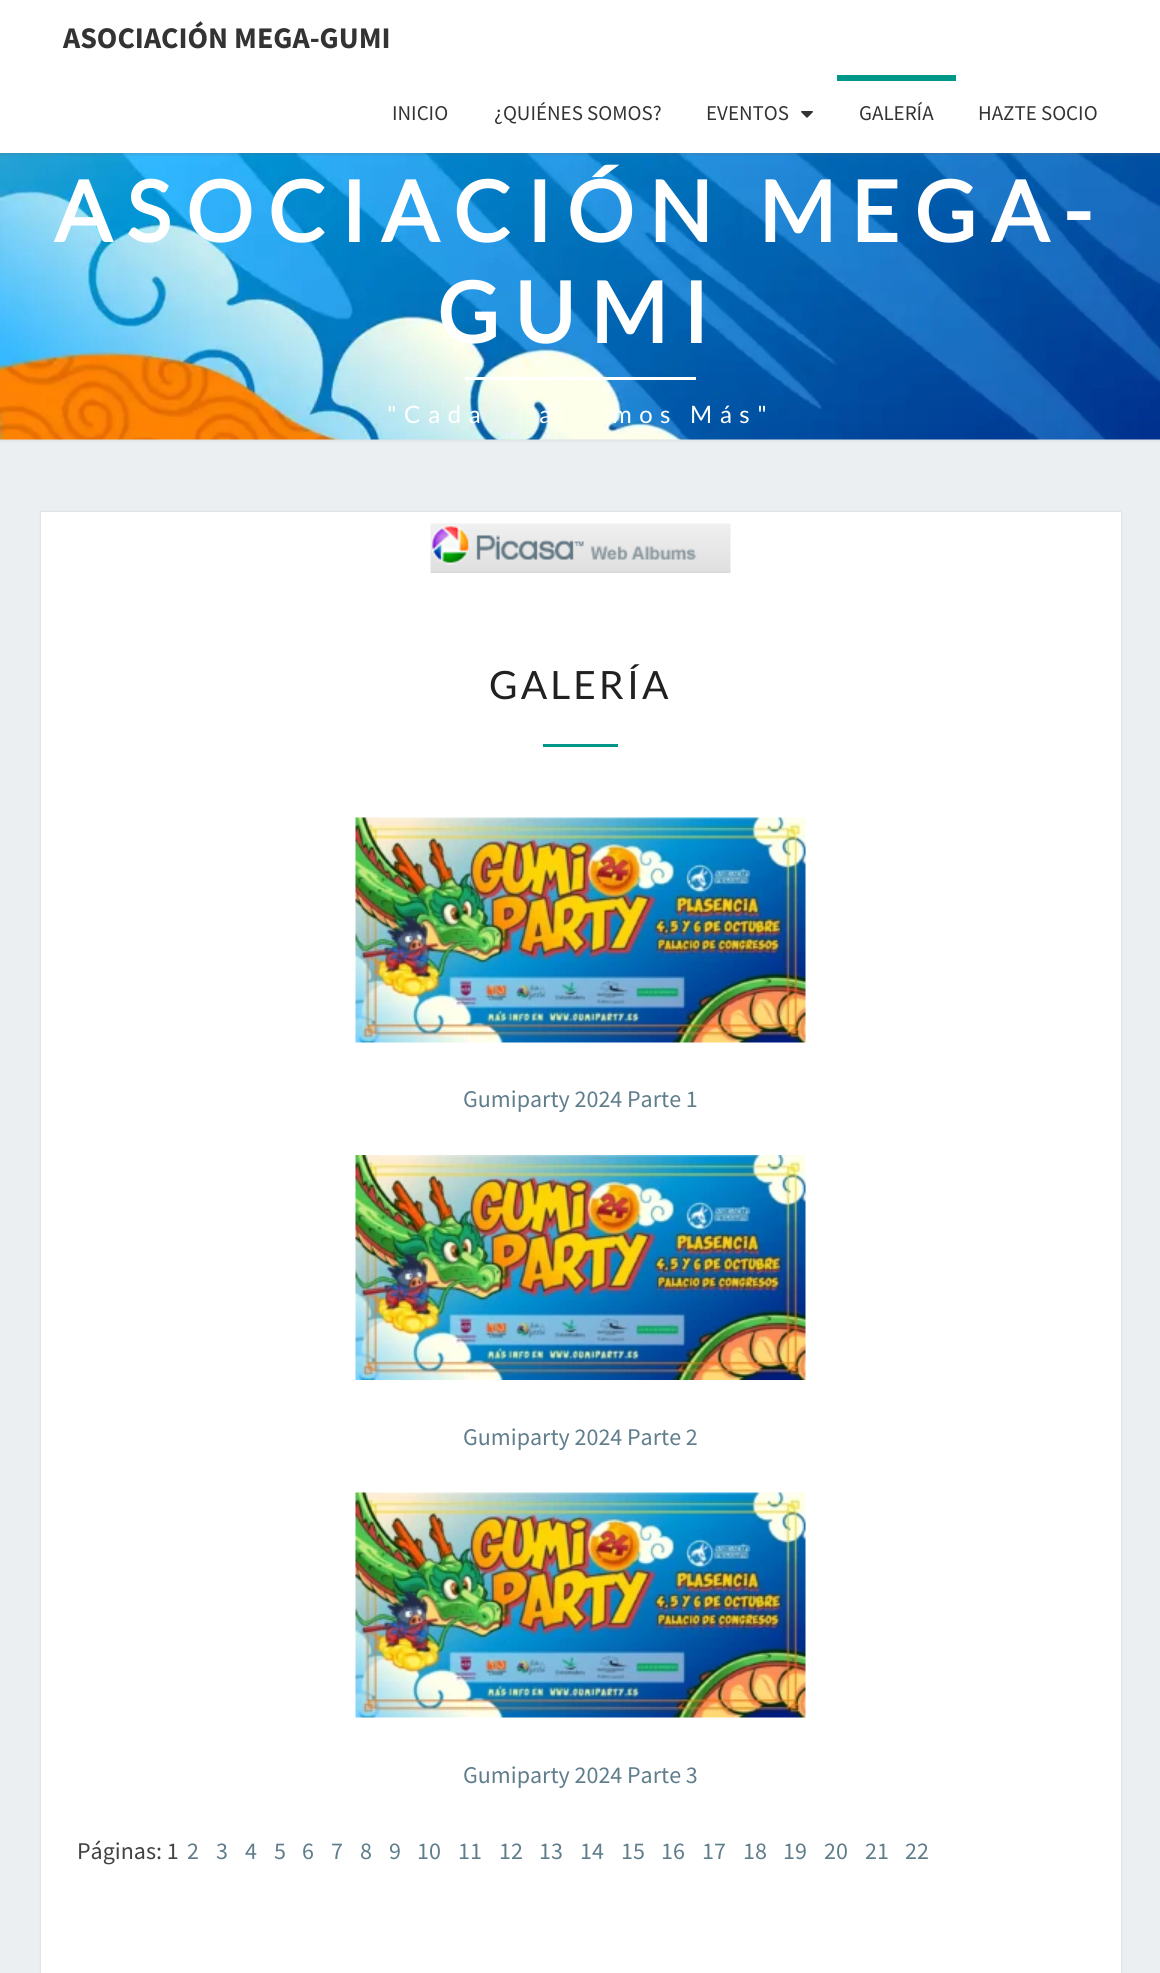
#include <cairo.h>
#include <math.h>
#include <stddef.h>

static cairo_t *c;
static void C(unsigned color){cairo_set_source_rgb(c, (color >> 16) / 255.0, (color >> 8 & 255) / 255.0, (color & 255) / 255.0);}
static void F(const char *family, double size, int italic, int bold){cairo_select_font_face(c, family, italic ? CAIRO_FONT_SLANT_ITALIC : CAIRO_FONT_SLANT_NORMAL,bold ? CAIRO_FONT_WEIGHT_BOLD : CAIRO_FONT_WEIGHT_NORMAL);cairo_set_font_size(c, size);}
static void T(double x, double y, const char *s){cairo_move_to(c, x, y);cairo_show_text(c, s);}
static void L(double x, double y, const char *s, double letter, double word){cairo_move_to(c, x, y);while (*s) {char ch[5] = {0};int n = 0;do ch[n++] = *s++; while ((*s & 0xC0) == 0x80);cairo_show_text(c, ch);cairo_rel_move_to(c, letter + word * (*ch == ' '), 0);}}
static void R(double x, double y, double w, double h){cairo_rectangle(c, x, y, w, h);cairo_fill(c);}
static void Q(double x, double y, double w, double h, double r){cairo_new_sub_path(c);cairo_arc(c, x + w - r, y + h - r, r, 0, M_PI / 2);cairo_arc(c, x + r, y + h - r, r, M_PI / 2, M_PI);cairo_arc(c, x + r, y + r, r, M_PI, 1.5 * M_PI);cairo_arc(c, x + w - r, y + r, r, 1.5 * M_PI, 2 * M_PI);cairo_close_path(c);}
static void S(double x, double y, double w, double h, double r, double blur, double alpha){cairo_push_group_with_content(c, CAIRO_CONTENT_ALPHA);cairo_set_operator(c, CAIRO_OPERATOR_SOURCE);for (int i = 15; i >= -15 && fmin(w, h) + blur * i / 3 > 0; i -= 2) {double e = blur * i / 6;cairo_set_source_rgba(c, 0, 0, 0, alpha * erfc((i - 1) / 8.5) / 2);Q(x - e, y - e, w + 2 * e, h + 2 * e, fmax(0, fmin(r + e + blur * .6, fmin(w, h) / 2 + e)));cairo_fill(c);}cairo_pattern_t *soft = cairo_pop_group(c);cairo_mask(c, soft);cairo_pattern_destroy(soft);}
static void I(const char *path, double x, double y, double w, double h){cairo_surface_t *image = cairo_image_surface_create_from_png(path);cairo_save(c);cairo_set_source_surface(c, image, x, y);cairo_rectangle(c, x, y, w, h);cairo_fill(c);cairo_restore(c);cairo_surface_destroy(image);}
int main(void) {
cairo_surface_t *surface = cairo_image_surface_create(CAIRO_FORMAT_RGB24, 1160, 1973);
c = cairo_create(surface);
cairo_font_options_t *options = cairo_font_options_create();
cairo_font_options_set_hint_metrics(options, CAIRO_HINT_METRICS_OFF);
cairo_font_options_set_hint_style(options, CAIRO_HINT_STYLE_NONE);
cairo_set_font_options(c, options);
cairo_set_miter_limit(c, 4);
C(0xeceff1);
cairo_paint(c);
C(0xb6b6b6);
S(-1,152,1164,289,0,1.5,.3);
I("2.png",0,153,1160,287);
C(0x646464);
S(0,2,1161,153,0,1,.2);
C(0xffffff);
R(0,0,1160,153);
F("Source Sans Pro",30,0,1);
C(0x333333);
T(63,48,"ASOCIACIÓN MEGA-GUMI");
F("Source Sans Pro",21,0,0);
T(392,120,"INICIO");
T(494,120,"¿QUIÉNES SOMOS?");
T(706,120,"EVENTOS");
I("1.png",801,111,12,7);
C(0x009688);
R(837,75,119,6);
C(0x333333);
T(859,120,"GALERÍA");
T(978,120,"HAZTE SOCIO");
F("Lato",84,0,1);
C(0xffffff);
L(54,242,"ASOCIACIÓN MEGA-",15,0);
L(437,343,"GUMI",15,0);
R(465,377,231,3);
F("Lato",24,0,0);
L(387,423,"\"Cada",7.5,0);
L(539,423,"a",7.5,0);
L(612,423,"mos Más\"",7.5,0);
C(0x000000);
S(41,512,1080,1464,0,1,.15);
C(0xffffff);
R(41,512,1080,1461);
I("3.png",430,523,301,50);
F("Lato",39,0,0);
C(0x212121);
L(489,699,"GALERÍA",3,0);
C(0x009688);
R(543,744,75,3);
I("4.png",355,817,451,226);
F("Source Sans Pro",24,0,0);
C(0x607d8b);
T(463,1107,"Gumiparty 2024 Parte 1");
I("5.png",355,1155,451,225);
T(463,1445,"Gumiparty 2024 Parte 2");
I("4.png",355,1492,451,226);
T(463,1783,"Gumiparty 2024 Parte 3");
C(0x424242);
T(77,1859,"Páginas: 1");
C(0x607d8b);
T(187,1859,"2");
T(216,1859,"3");
T(245,1859,"4");
T(274,1859,"5");
T(302,1859,"6");
T(331,1859,"7");
T(360,1859,"8");
T(389,1859,"9");
T(417,1859,"10");
T(458,1859,"11");
T(499,1859,"12");
T(539,1859,"13");
T(580,1859,"14");
T(621,1859,"15");
T(661,1859,"16");
T(702,1859,"17");
T(743,1859,"18");
T(783,1859,"19");
T(824,1859,"20");
T(865,1859,"21");
T(905,1859,"22");
cairo_surface_write_to_png(surface, "o.png");
cairo_font_options_destroy(options);
cairo_destroy(c);
cairo_surface_destroy(surface);
return 0;
}
